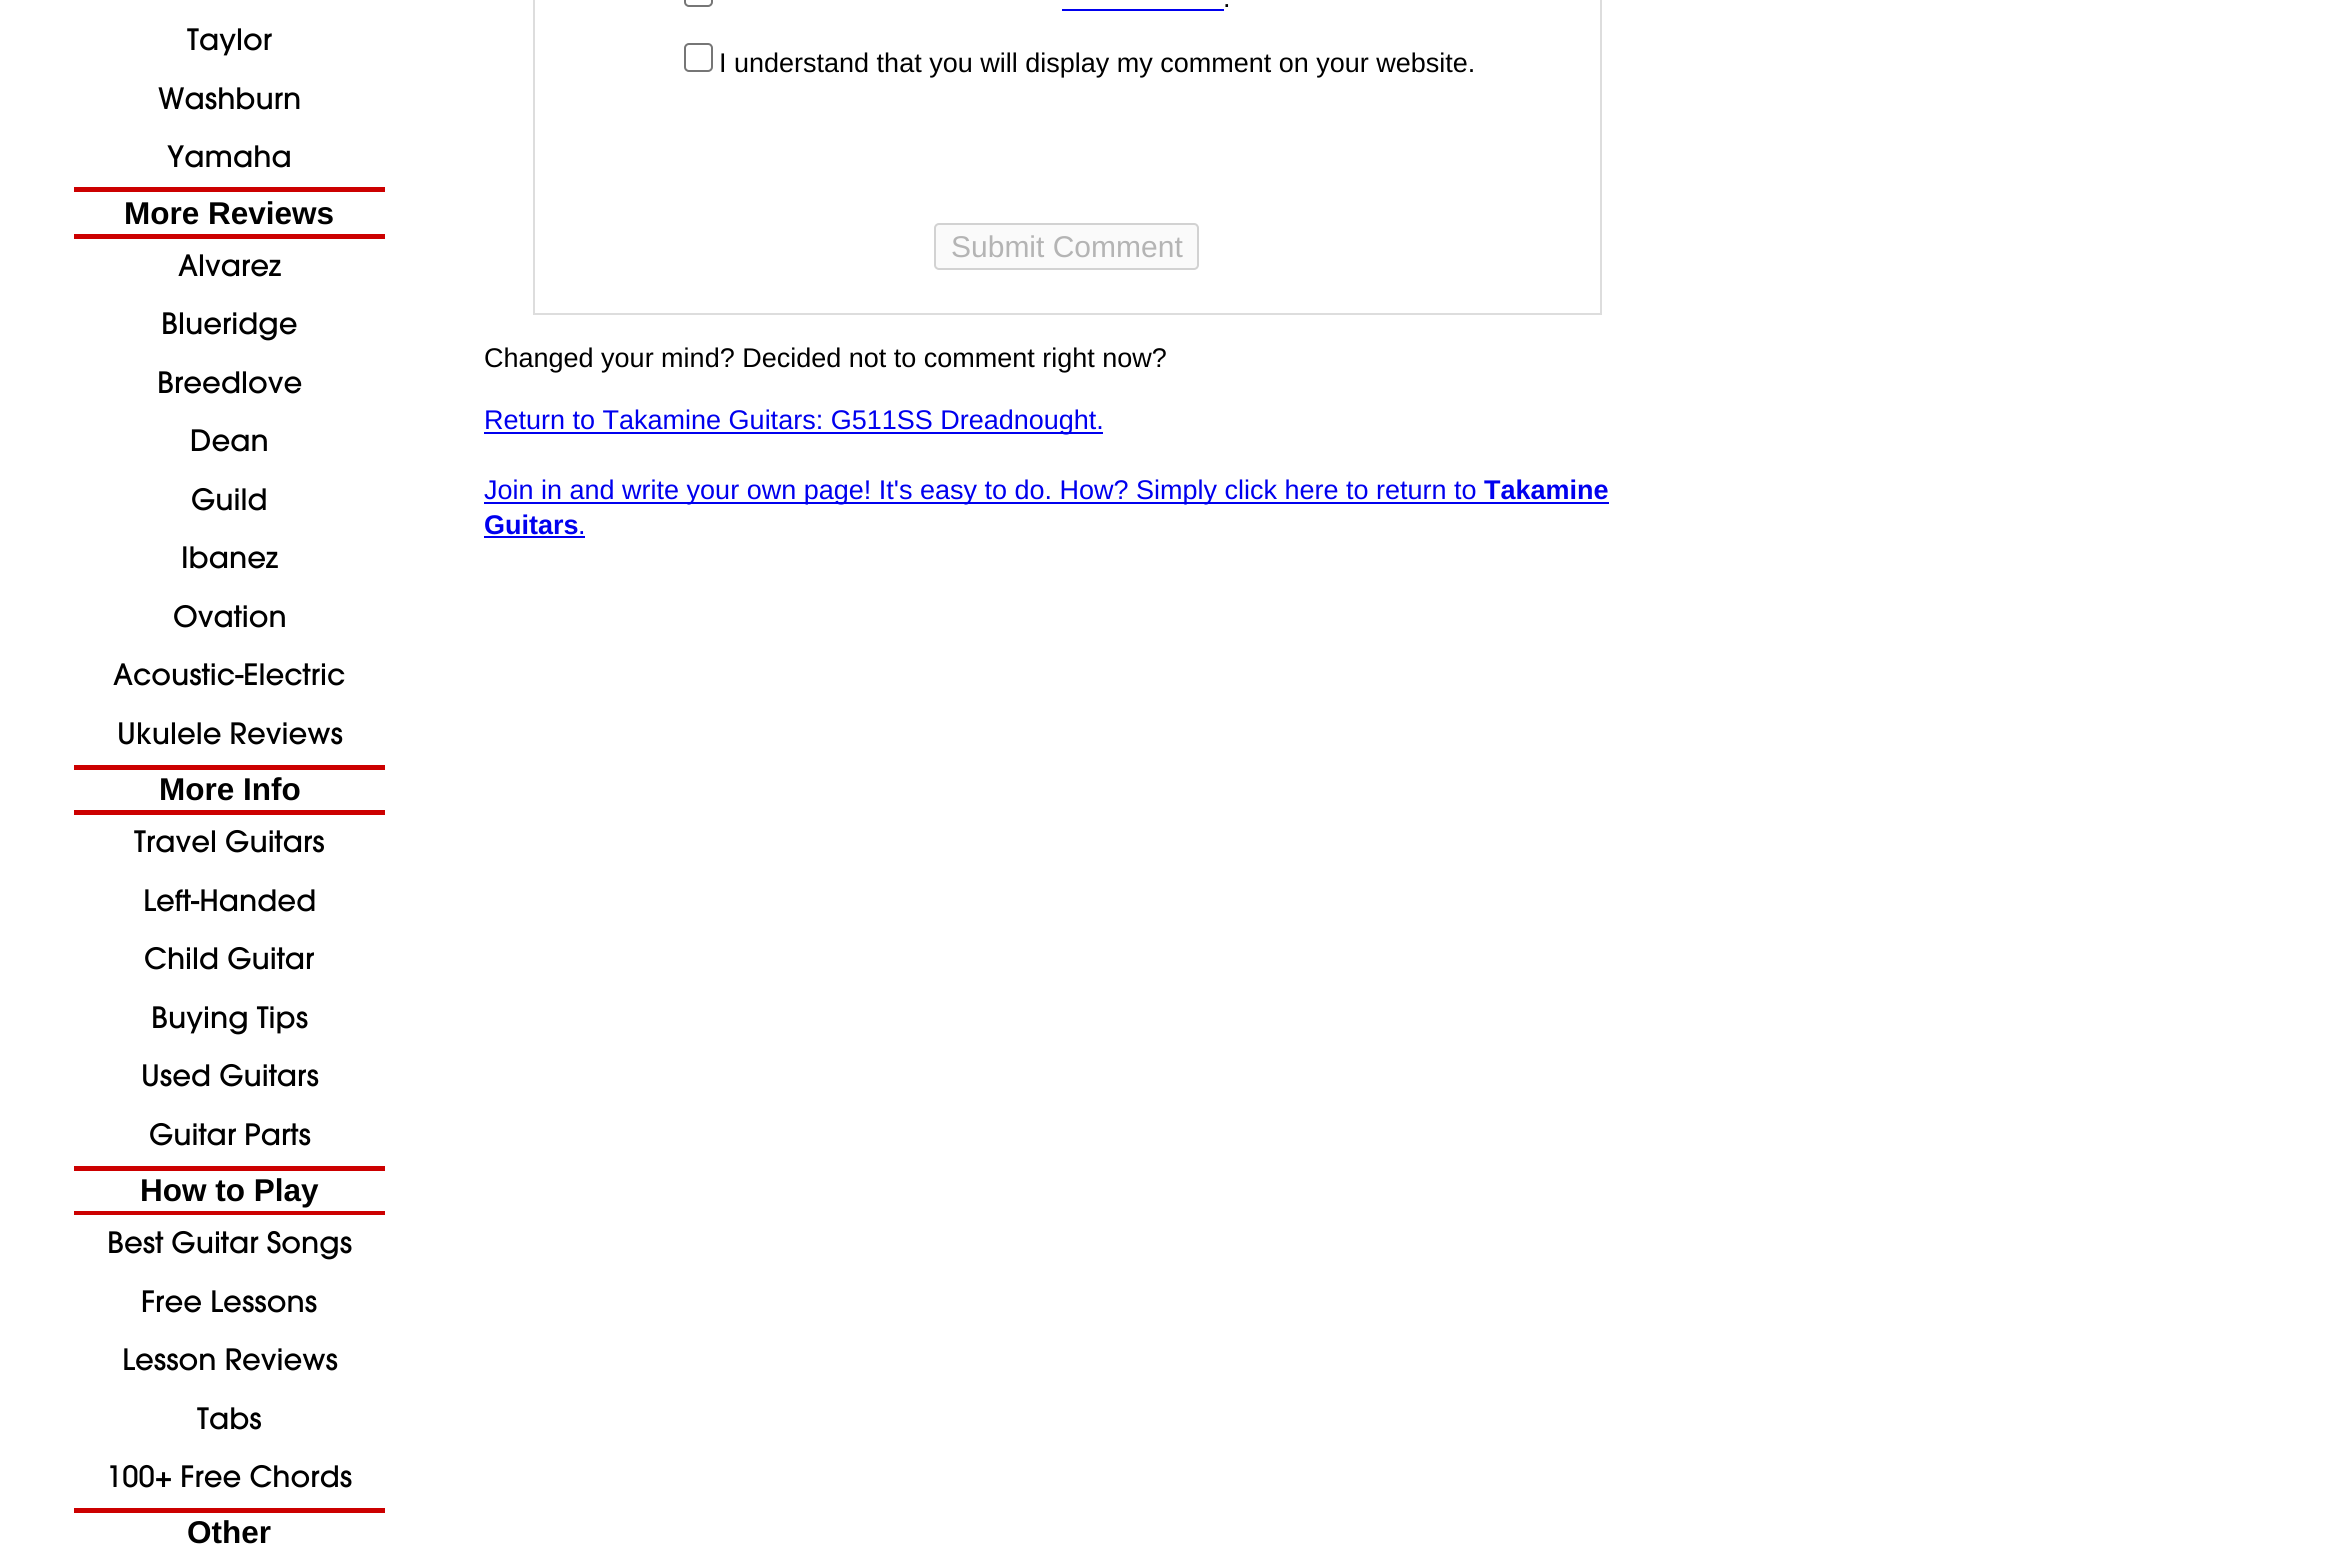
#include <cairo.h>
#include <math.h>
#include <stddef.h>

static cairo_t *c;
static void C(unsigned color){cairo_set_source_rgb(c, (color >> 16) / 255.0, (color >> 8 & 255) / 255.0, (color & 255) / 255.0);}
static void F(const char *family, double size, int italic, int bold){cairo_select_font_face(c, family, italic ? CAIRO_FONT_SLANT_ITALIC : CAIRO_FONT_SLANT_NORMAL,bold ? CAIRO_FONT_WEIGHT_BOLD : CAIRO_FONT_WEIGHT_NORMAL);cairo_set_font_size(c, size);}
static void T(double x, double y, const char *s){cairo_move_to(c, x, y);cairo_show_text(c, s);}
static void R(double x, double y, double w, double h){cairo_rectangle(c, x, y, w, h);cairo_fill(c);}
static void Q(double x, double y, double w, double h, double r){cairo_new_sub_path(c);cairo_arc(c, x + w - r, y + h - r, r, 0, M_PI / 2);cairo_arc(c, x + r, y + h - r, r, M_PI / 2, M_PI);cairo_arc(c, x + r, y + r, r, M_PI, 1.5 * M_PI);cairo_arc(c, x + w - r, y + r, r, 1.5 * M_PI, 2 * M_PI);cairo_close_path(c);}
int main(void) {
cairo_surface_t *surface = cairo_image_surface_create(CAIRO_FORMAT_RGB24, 2325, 1548);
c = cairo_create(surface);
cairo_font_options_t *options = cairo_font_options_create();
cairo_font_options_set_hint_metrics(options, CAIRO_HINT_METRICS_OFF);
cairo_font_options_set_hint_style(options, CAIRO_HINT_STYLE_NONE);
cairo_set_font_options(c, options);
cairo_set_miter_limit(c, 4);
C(0xffffff);
cairo_paint(c);
F("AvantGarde",29.25,0,0);
C(0x000000);
T(187,50,"Taylor");
T(158,109,"Washburn");
T(167,167,"Yamaha");
C(0xcc0000);
R(74,187,311,5);
R(74,234,311,5);
F("Liberation Sans",31.5,0,1);
C(0x000000);
T(124,224,"More Reviews");
F("AvantGarde",29.25,0,0);
T(178,276,"Alvarez");
T(161,334,"Blueridge");
T(157,393,"Breedlove");
T(190,451,"Dean");
T(191,510,"Guild");
T(181,568,"Ibanez");
T(173,627,"Ovation");
T(113,685,"Acoustic-Electric");
T(117,744,"Ukulele Reviews");
C(0xcc0000);
R(74,765,311,5);
R(74,810,311,5);
F("Liberation Sans",31.5,0,1);
C(0x000000);
T(159,800,"More Info");
F("AvantGarde",29.25,0,0);
T(134,852,"Travel Guitars");
T(143,911,"Left-Handed");
T(144,969,"Child Guitar");
T(151,1028,"Buying Tips");
T(141,1086,"Used Guitars");
T(149,1145,"Guitar Parts");
C(0xcc0000);
R(74,1166,311,5);
R(74,1211,311,4);
F("Liberation Sans",31.5,0,1);
C(0x000000);
T(140,1201,"How to Play");
F("AvantGarde",29.25,0,0);
T(107,1253,"Best Guitar Songs");
T(141,1312,"Free Lessons");
T(122,1370,"Lesson Reviews");
T(197,1429,"Tabs");
T(106,1487,"100+ Free Chords");
C(0xcc0000);
R(74,1508,311,5);
F("Liberation Sans",31.5,0,1);
C(0x000000);
T(187,1543,"Other");
cairo_rectangle(c,534,-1,1067,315);
C(0xdddddd);
cairo_stroke(c);
Q(685,-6,27,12,4);
C(0x767676);
cairo_stroke(c);
F("Liberation Sans",27,0,0);
C(0x000000);
T(1223,7,".");
C(0x0000ee);
R(1062,9,162,2);
Q(685,44,27,27,4);
C(0x767676);
cairo_stroke(c);
C(0x000000);
T(719,72,"I understand that you will display my comment on your website.");
C(0xfafafa);
Q(935,224,263,45,4);
cairo_fill_preserve(c);
C(0xd2d2d2);
cairo_stroke(c);
F("Liberation Sans",30,0,0);
C(0xb4b4b4);
T(951,257,"Submit Comment");
F("Liberation Sans",27,0,0);
C(0x000000);
T(484,367,"Changed your mind? Decided not to comment right now?");
C(0x0000ee);
R(484,432,619,2);
T(484,429,"Return to Takamine Guitars: G511SS Dreadnought.");
R(484,502,1125,2);
T(484,499,"Join in and write your own page! It's easy to do. How? Simply click here to return to");
F("Liberation Sans",27,0,1);
T(1484,499,"Takamine");
T(484,534,"Guitars");
F("Liberation Sans",27,0,0);
T(578,534,".");
R(484,536,101,2);
cairo_surface_write_to_png(surface, "o.png");
cairo_font_options_destroy(options);
cairo_destroy(c);
cairo_surface_destroy(surface);
return 0;
}
